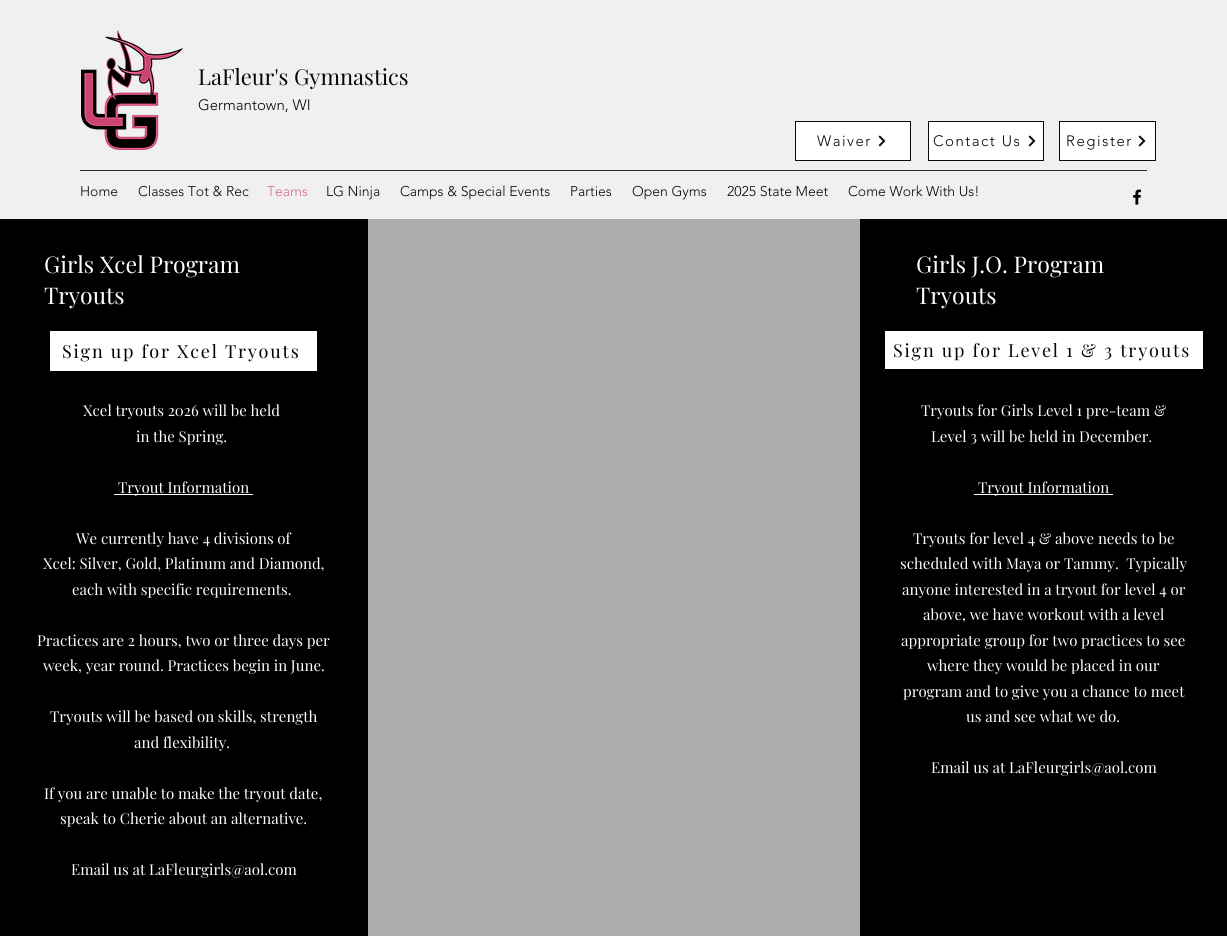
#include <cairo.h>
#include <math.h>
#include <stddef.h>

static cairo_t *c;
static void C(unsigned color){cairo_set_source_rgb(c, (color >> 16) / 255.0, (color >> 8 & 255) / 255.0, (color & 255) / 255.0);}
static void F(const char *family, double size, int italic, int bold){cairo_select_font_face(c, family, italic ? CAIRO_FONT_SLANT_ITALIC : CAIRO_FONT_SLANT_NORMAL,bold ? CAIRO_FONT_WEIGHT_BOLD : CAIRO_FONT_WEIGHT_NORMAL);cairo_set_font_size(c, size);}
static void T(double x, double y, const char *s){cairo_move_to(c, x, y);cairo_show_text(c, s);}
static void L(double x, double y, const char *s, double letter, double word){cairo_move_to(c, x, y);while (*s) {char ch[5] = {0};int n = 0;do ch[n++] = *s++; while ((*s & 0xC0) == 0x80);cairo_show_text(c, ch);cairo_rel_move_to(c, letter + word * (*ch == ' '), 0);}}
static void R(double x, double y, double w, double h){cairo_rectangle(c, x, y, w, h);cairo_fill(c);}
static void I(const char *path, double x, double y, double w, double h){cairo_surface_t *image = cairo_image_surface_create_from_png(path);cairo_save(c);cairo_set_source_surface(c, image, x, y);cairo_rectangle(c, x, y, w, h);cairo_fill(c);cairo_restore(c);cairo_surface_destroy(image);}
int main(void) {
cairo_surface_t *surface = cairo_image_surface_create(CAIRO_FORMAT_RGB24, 1227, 936);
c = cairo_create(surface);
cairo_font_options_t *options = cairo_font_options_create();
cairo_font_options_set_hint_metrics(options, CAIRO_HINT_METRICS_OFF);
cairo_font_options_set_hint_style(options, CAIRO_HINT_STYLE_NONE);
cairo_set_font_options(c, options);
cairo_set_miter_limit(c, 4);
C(0x000000);
cairo_paint(c);
C(0xf0f0f0);
R(0,0,1227,219);
I("1.png",81,30,102,120);
F("Playfair Display",22,0,0);
C(0x080707);
T(198,85,"LaFleur's Gymnastics");
F("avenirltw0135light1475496 Light",15,0,0);
T(198,110,"Germantown, WI");
C(0xffffff);
cairo_rectangle(c,795.5,121.5,115,39);
cairo_fill_preserve(c);
C(0x0a0a0a);
cairo_set_line_width(c,1);
cairo_stroke(c);
C(0x080707);
L(817,146,"Waiver",1.5,0);
I("2.png",878,135,8,12);
C(0xffffff);
cairo_rectangle(c,928.5,121.5,115,39);
cairo_fill_preserve(c);
C(0x0a0a0a);
cairo_stroke(c);
C(0x080707);
L(933,146,"Contact Us",1.5,0);
I("2.png",1028,135,8,12);
C(0xffffff);
cairo_rectangle(c,1059.5,121.5,96,39);
cairo_fill_preserve(c);
C(0x0a0a0a);
cairo_stroke(c);
C(0x080707);
L(1066,146,"Register",1.5,0);
I("2.png",1138,135,8,12);
C(0x2b2a2a);
R(80,170,1067,1);
F("avenirltw0135light1475496 Light",14,0,0);
C(0x080707);
T(80,196,"Home");
T(138,196,"Classes Tot & Rec");
C(0xd66c91);
T(267,196,"Teams");
C(0x080707);
T(326,196,"LG Ninja");
T(400,196,"Camps & Special Events");
T(570,196,"Parties");
T(632,196,"Open Gyms");
T(727,196,"2025 State Meet");
T(848,196,"Come Work With Us!");
I("3.png",1133,189,9,16);
F("Playfair Display",23,0,0);
C(0xffffff);
T(44,273,"Girls Xcel Program");
T(44,304,"Tryouts");
R(50,331,267,40);
F("Playfair Display",18,0,0);
C(0x000000);
L(62,358,"Sign up for Xcel Tryouts",1.8,0);
F("Playfair Display",15,0,0);
C(0xffffff);
T(83,416,"Xcel tryouts 2026 will be held");
T(136,442,"in the Spring.");
R(114,494,139,1);
T(118,493,"Tryout Information");
T(76,544,"We currently have 4 divisions of");
T(43,569,"Xcel: Silver, Gold, Platinum and Diamond,");
T(72,595,"each with specific requirements.");
T(37,646,"Practices are 2 hours, two or three days per");
T(43,671,"week, year round. Practices begin in June.");
T(50,722,"Tryouts will be based on skills, strength");
T(134,748,"and flexibility.");
T(44,799,"If you are unable to make the tryout date,");
T(60,824,"speak to Cherie about an alternative.");
T(71,875,"Email us at LaFleurgirls@aol.com");
C(0xadadad);
R(368,219,492,717);
F("Playfair Display",23,0,0);
C(0xffffff);
T(916,273,"Girls J.O. Program");
T(916,304,"Tryouts");
R(885,331,318,38);
F("Playfair Display",18,0,0);
C(0x080707);
L(893,357,"Sign up for Level 1 & 3 tryouts",1.8,0);
F("Playfair Display",15,0,0);
C(0xffffff);
T(921,416,"Tryouts for Girls Level 1 pre-team &");
T(931,442,"Level 3 will be held in December.");
R(974,494,139,1);
T(978,493,"Tryout Information");
T(913,544,"Tryouts for level 4 & above needs to be");
T(900,569,"scheduled with Maya or Tammy.  Typically");
T(902,595,"anyone interested in a tryout for level 4 or");
T(923,620,"above, we have workout with a level");
T(901,646,"appropriate group for two practices to see");
T(927,671,"where they would be placed in our");
T(903,697,"program and to give you a chance to meet");
T(966,722,"us and see what we do.");
T(931,773,"Email us at LaFleurgirls@aol.com");
cairo_surface_write_to_png(surface, "o.png");
cairo_font_options_destroy(options);
cairo_destroy(c);
cairo_surface_destroy(surface);
return 0;
}
